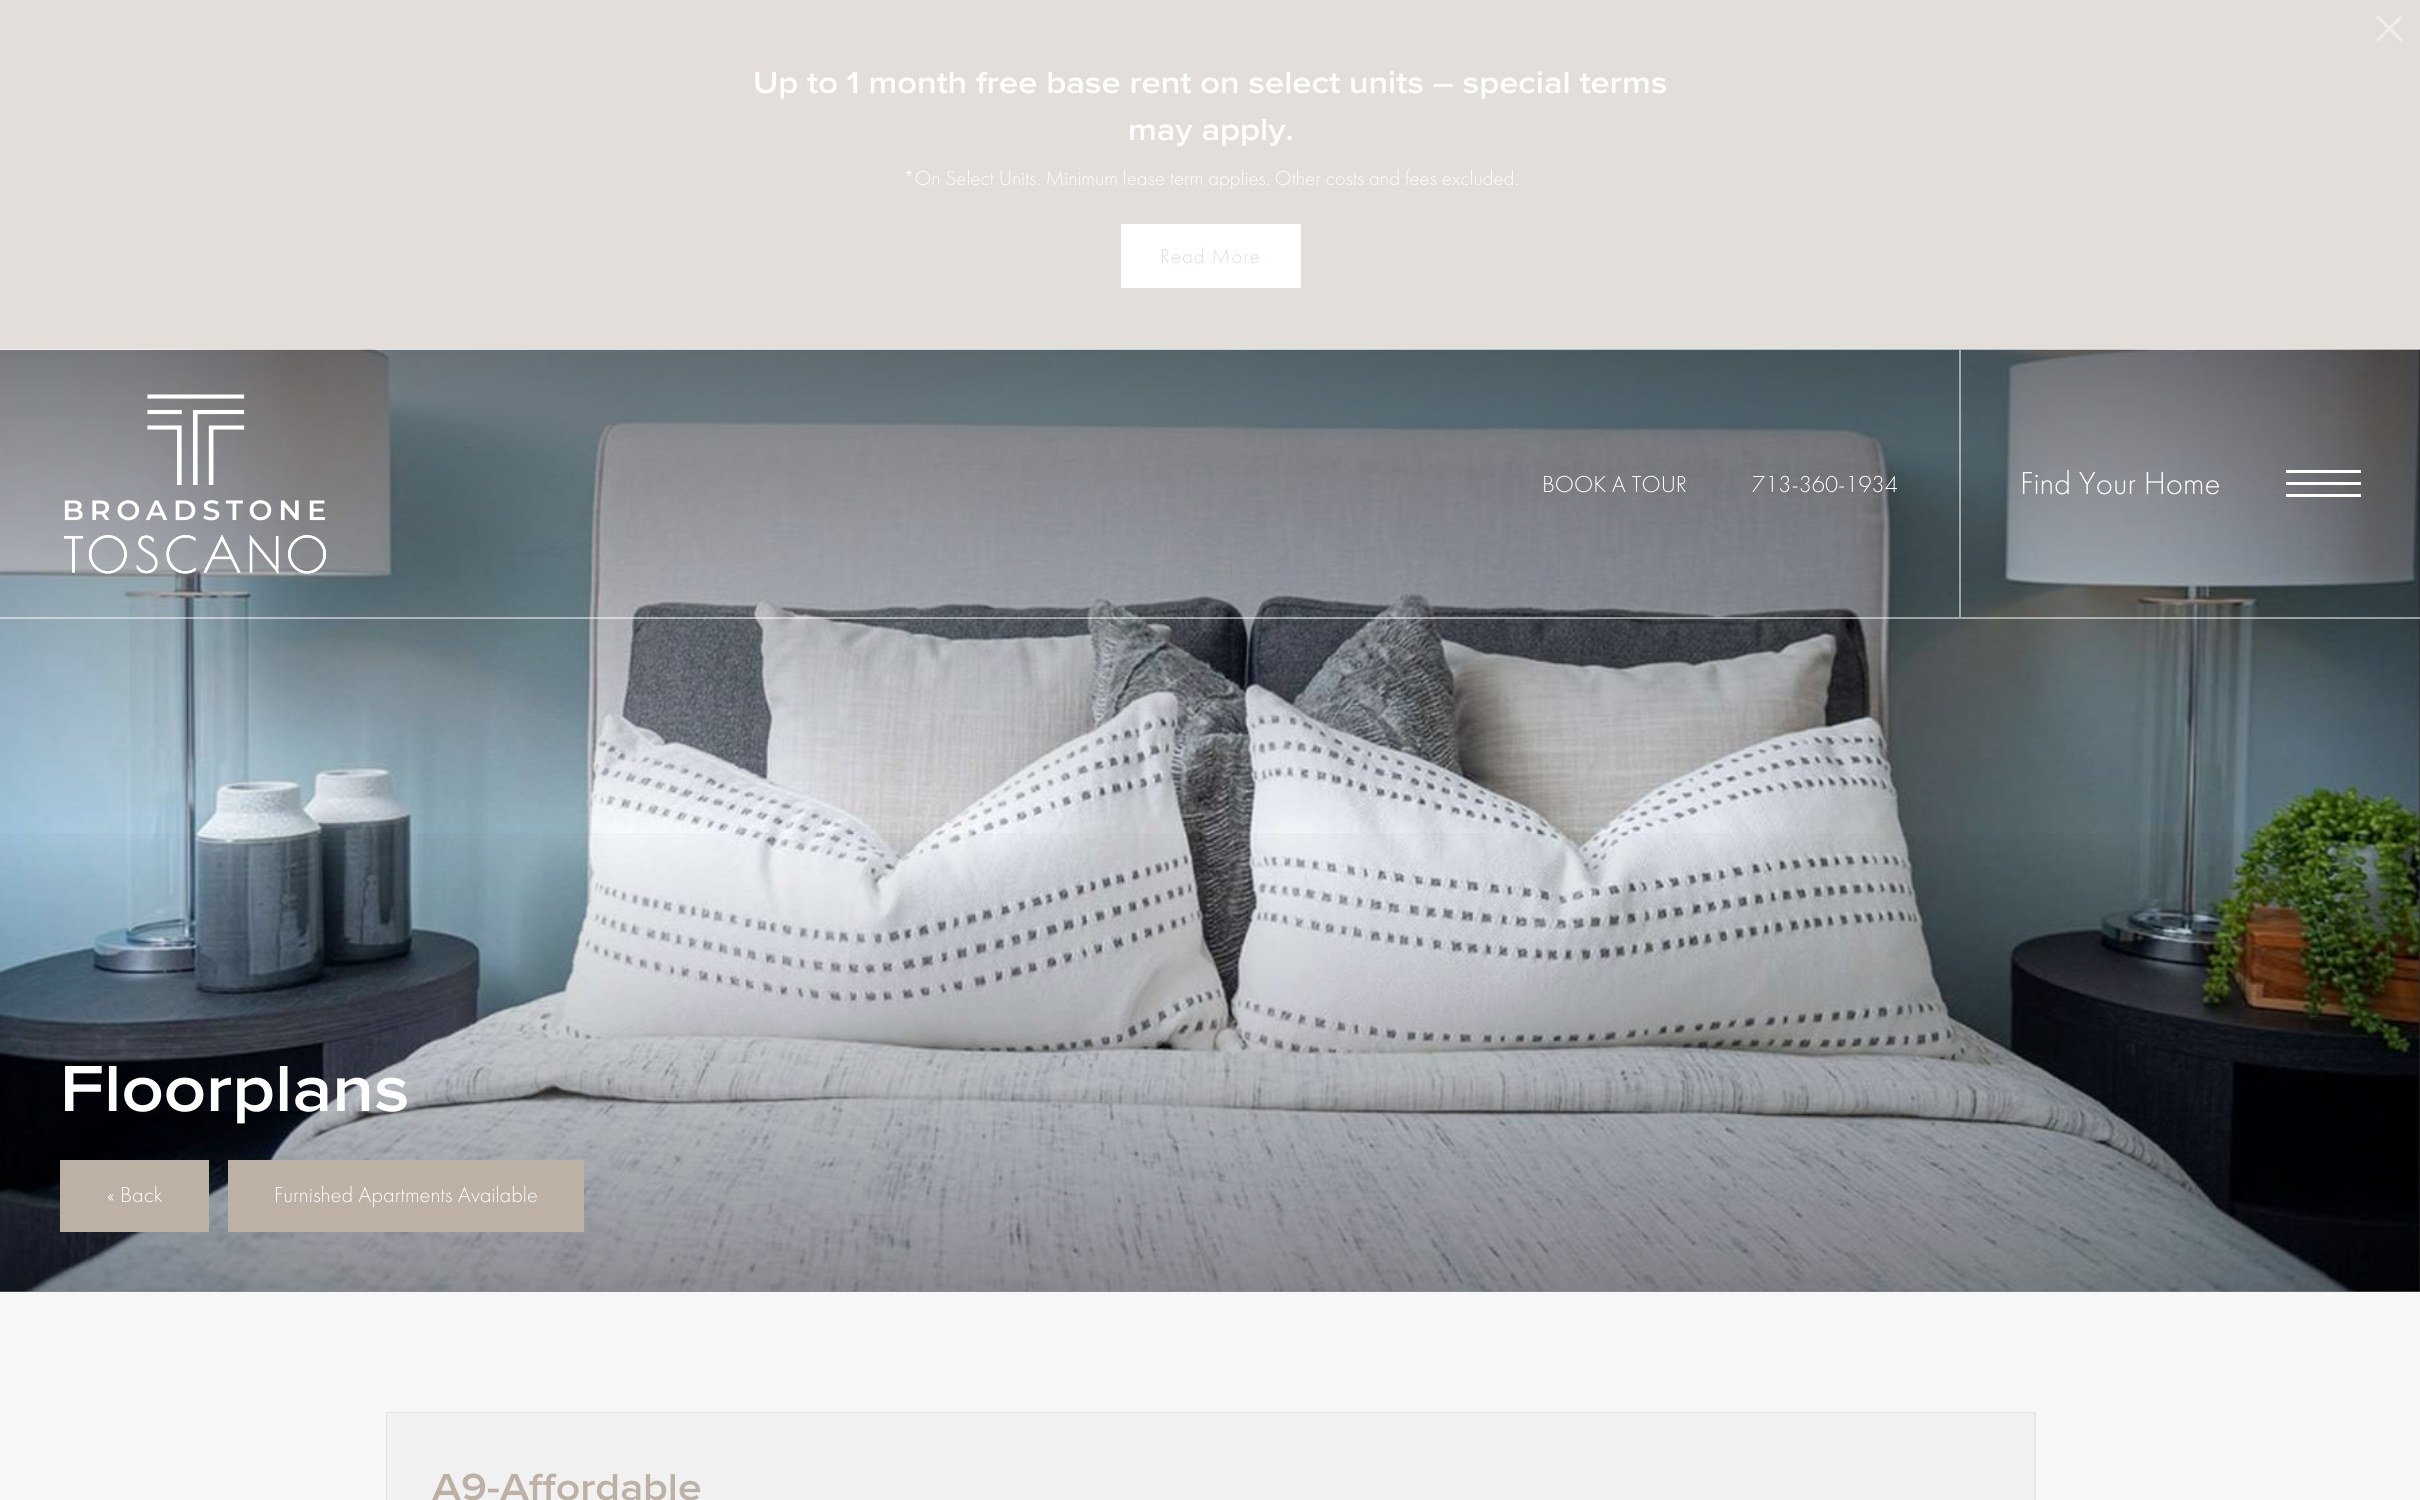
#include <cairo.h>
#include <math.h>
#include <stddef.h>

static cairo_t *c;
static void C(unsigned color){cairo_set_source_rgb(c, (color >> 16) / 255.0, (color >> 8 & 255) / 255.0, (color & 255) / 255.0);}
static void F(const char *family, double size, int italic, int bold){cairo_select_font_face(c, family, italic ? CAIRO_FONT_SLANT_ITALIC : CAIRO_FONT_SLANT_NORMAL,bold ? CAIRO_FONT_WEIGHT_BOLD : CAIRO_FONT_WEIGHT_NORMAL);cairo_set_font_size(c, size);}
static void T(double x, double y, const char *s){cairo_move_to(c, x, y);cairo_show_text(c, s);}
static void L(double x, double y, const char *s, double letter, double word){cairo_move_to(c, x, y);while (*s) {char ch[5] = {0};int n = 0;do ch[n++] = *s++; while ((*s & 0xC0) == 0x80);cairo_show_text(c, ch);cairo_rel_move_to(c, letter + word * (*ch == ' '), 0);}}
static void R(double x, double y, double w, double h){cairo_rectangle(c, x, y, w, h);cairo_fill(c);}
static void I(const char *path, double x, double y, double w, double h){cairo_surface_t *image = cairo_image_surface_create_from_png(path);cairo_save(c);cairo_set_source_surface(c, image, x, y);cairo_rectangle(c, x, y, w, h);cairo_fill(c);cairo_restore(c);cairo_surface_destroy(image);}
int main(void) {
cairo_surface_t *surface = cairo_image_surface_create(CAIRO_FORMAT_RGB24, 2420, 1500);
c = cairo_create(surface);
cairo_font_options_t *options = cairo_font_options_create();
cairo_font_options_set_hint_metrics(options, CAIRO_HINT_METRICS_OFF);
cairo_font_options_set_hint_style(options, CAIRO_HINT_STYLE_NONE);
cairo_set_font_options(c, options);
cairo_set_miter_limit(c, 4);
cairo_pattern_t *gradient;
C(0xe3ded9);
cairo_paint(c);
C(0xe6e1dd);
R(0,348,2420,2);
I("1.png",2376,15,27,27);
F("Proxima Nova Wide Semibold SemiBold",31.5,0,0);
C(0xffffff);
T(753,93,"Up to 1 month free base rent on select units – special terms");
T(1128,140,"may apply.");
F("Futura PT Light",21,0,0);
T(903,185,"*On Select Units. Minimum lease term applies. Other costs and fees excluded.");
R(1121,224,180,64);
C(0xe3ddd8);
L(1160,263,"Read More",1,0);
C(0xf7f7f7);
R(0,1291,2420,209);
I("3.png",0,349,2420,943);
I("4.png",0,349,2420,943);
cairo_set_source_rgba(c,1,1,1,0.5);
R(0,617,2420,2);
I("2.png",63,394,264,180);
F("Futura PT Light",24,0,0);
C(0xffffff);
T(1542,492,"BOOK A TOUR");
T(1752,492,"713-360-1934");
cairo_set_source_rgba(c,1,1,1,0.5);
R(1959,350,2,267);
F("Futura PT Light",33,0,0);
C(0xffffff);
T(2020,494,"Find Your Home");
R(2286,470,75,3);
R(2286,482,75,3);
R(2286,494,75,3);
gradient = cairo_pattern_create_linear(1211,807,1211,1292);
cairo_pattern_add_color_stop_rgba(gradient,0,0,0,0,0);
cairo_pattern_add_color_stop_rgba(gradient,1,0,0,0,.4);
cairo_set_source(c,gradient);
cairo_pattern_destroy(gradient);
R(0,833,2420,459);
F("Proxima Nova Wide Semibold SemiBold",67.5,0,0);
C(0xffffff);
T(60,1111,"Floorplans");
C(0xbdb0a4);
R(60,1160,149,72);
F("Futura PT Light",22.5,0,0);
C(0xffffff);
T(107,1202,"« Back");
C(0xbdb0a4);
R(228,1160,356,72);
C(0xffffff);
T(274,1202,"Furnished Apartments Available");
cairo_rectangle(c,387,1413,1648,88);
C(0xe5e5e5);
cairo_stroke(c);
C(0xf1f1f1);
R(387,1413,1647,87);
F("Proxima Nova Wide Semibold SemiBold",39,0,0);
C(0xbdb0a4);
T(432,1500,"A9-Affordable");
cairo_surface_write_to_png(surface, "o.png");
cairo_font_options_destroy(options);
cairo_destroy(c);
cairo_surface_destroy(surface);
return 0;
}
